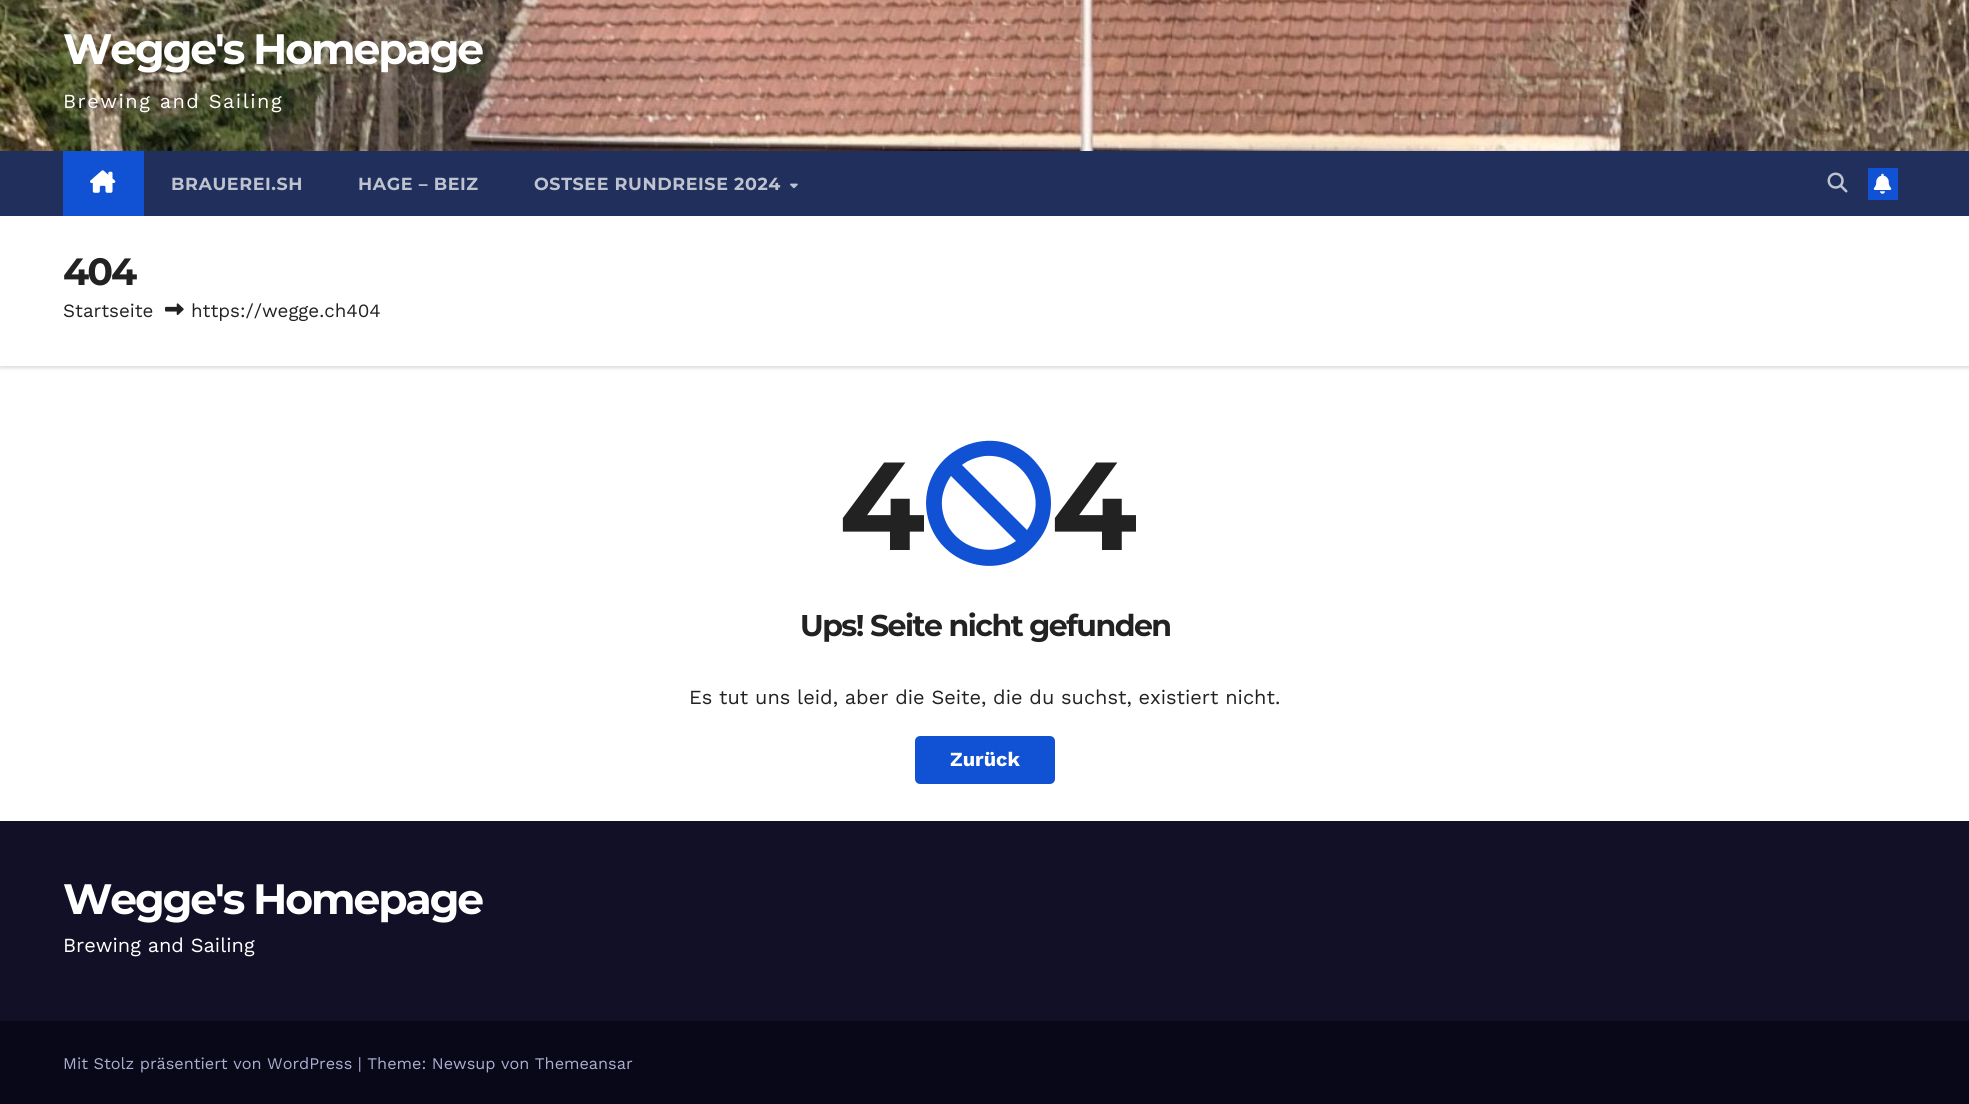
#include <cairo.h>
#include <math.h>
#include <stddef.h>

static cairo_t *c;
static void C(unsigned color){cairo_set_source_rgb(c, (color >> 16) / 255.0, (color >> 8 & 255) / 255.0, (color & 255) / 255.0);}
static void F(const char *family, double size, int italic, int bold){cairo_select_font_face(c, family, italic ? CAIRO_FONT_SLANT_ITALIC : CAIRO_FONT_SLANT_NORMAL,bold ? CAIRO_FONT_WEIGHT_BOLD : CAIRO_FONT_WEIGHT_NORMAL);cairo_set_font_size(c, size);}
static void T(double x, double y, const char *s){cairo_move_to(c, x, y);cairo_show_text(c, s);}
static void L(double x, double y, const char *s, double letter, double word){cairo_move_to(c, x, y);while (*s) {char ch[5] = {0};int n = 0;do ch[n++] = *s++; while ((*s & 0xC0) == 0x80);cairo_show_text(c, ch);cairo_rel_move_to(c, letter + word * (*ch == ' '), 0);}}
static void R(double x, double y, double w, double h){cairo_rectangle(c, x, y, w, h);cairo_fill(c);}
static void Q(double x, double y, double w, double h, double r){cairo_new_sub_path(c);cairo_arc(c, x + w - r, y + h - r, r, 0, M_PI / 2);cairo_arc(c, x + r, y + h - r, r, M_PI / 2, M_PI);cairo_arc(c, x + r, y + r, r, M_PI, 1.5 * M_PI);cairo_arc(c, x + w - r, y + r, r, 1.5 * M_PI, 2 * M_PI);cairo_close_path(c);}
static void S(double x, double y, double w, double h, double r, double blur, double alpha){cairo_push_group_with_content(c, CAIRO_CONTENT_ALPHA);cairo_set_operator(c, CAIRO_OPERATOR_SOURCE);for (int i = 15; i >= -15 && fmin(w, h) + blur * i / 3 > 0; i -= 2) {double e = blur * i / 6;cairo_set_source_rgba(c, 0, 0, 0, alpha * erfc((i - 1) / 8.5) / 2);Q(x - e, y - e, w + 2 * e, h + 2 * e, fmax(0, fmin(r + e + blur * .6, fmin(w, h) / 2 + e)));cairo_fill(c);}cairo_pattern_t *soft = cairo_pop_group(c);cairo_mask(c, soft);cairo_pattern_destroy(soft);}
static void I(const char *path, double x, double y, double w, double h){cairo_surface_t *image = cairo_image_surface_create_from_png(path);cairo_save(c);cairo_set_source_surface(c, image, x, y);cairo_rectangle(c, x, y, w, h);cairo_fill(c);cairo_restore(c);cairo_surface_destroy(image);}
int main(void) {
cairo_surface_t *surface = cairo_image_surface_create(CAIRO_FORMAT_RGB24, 1969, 1104);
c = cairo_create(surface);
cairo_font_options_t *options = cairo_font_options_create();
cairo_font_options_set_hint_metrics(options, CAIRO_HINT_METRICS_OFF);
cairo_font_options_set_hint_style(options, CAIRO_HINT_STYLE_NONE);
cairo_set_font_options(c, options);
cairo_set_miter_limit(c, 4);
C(0xffffff);
cairo_paint(c);
I("1.png",0,0,1969,151);
F("Montserrat",42.5,0,1);
C(0xffffff);
L(63,64,"Wegge's Homepage",-2.1,0);
F("Work Sans",20,0,0);
L(63,108,"Brewing and Sailing",1.5,0);
C(0x000000);
S(0,218,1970,150,0,2,.15);
C(0x202f5b);
R(0,151,1969,65);
C(0x1151d3);
R(63,151,81,65);
I("2.png",90,170,26,23);
F("Montserrat",17.5,0,1);
C(0xbec3cf);
L(171,190,"BRAUEREI.SH",.6,0);
L(358,190,"HAGE – BEIZ",.6,0);
L(534,190,"OSTSEE RUNDREISE 2024",.6,0);
I("3.png",790,183,8,6);
I("4.png",1827,172,21,21);
C(0x1151d3);
R(1868,168,30,32);
I("5.png",1873,173,19,21);
C(0xffffff);
R(0,216,1969,150);
F("Montserrat",38,0,1);
C(0x222222);
L(63,285,"404",-2,0);
F("Work Sans",18.75,0,0);
T(63,317,"Startseite");
I("6.png",165,303,19,12);
T(191,317,"https://wegge.ch404");
F("Montserrat",125,0,1);
L(839,550,"4",-6,0);
C(0x1151d3);
cairo_new_path(c);
cairo_move_to(c,1016,541);
cairo_line_to(c,951,476);
cairo_curve_to(c,946,483,943,491,942,499);
cairo_curve_to(c,939,539,984,564,1016,541);
cairo_close_path(c);
cairo_move_to(c,1027,530);
cairo_curve_to(c,1050,498,1024,453,985,456);
cairo_curve_to(c,977,457,968,460,962,465);
cairo_close_path(c);
cairo_move_to(c,926,503);
cairo_curve_to(c,927,444,1002,418,1038,465);
cairo_curve_to(c,1047,476,1051,490,1051,503);
cairo_curve_to(c,1051,517,1047,530,1038,541);
cairo_curve_to(c,1002,589,927,563,926,503);
cairo_close_path(c);
cairo_fill(c);
C(0x222222);
L(1051,550,"4",-6,0);
F("Montserrat",30,0,1);
L(800,636,"Ups! Seite nicht gefunden",-1.5,0);
F("Work Sans",20,0,0);
T(689,704,"Es tut uns leid, aber die Seite, die du suchst, existiert nicht.");
C(0x1151d3);
Q(916.5,737.5,137,45,3.5);
cairo_fill_preserve(c);
cairo_set_line_width(c,3);
cairo_stroke(c);
F("Work Sans",20,0,1);
C(0xffffff);
T(950,766,"Zurück");
C(0x121026);
R(0,821,1969,200);
F("Montserrat",42.5,0,1);
C(0xffffff);
L(63,914,"Wegge's Homepage",-2.1,0);
F("Work Sans",20,0,0);
T(63,952,"Brewing and Sailing");
C(0x090818);
R(0,1021,1969,83);
F("Work Sans",16.25,0,0);
C(0xaaaed1);
T(63,1069,"Mit Stolz präsentiert von WordPress | Theme: Newsup von Themeansar");
cairo_surface_write_to_png(surface, "o.png");
cairo_font_options_destroy(options);
cairo_destroy(c);
cairo_surface_destroy(surface);
return 0;
}
